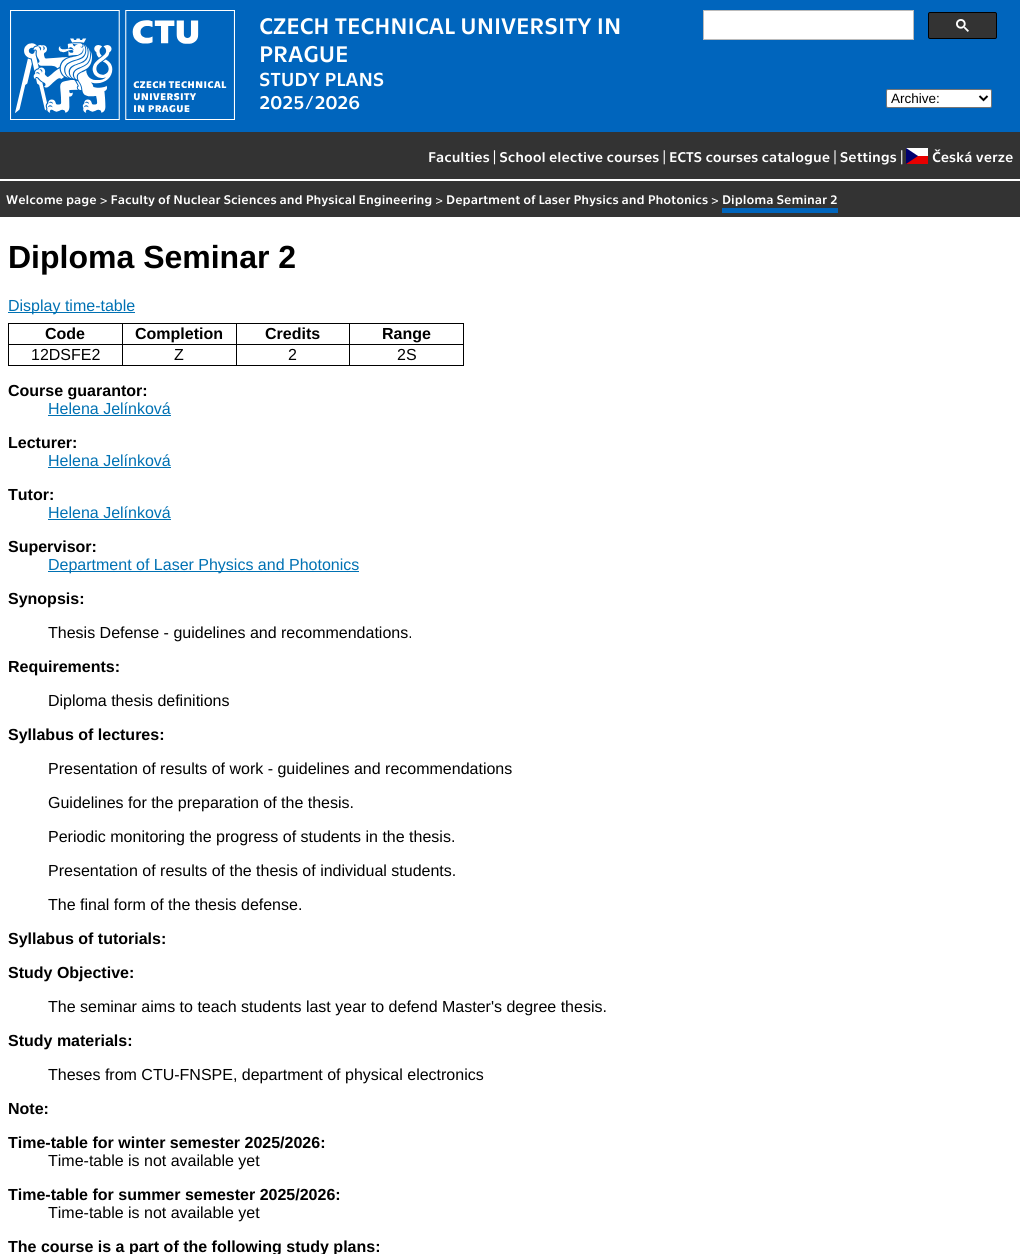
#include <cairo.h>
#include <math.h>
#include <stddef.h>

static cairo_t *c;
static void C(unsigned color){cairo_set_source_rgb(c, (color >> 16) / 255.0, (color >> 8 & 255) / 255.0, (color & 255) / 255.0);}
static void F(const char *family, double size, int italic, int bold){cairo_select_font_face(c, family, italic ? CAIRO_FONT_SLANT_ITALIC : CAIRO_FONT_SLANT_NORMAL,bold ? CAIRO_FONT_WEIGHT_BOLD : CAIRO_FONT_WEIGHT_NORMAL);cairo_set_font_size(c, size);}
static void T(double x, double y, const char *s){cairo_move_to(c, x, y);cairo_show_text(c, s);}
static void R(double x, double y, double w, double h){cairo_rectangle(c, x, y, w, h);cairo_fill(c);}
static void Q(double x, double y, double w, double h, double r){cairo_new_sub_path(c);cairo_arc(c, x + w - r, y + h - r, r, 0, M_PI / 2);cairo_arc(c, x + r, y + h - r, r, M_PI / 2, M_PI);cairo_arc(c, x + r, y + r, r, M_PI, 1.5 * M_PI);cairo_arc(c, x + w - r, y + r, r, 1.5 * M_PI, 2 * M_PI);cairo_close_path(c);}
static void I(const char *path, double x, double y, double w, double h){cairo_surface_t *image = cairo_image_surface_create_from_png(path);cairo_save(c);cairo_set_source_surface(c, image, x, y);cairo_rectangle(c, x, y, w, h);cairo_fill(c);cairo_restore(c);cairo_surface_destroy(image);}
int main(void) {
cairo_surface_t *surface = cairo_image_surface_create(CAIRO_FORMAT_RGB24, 1020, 1254);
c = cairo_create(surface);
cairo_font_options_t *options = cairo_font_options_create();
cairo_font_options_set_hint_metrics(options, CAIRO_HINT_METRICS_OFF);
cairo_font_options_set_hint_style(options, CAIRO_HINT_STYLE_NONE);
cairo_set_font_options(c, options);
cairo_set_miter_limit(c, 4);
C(0xffffff);
cairo_paint(c);
C(0x0065bd);
R(0,0,1020,132);
I("1.png",10,10,225,110);
F("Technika",23,0,0);
C(0xffffff);
T(259,34,"CZECH TECHNICAL UNIVERSITY IN");
cairo_rectangle(c,703.5,10.5,210,29);
cairo_fill_preserve(c);
C(0xbbbbbb);
cairo_set_line_width(c,1);
cairo_stroke(c);
C(0x333333);
Q(928.5,12.5,68,26,1.5);
cairo_fill_preserve(c);
C(0x000000);
cairo_stroke(c);
I("2.png",956,19,13,13);
C(0xffffff);
T(259,62,"PRAGUE");
F("Technika",19.25,0,0);
T(259,86,"STUDY PLANS");
T(259,109,"2025/2026");
Q(886.5,89.5,105,18,1.5);
cairo_fill_preserve(c);
C(0x767676);
cairo_stroke(c);
cairo_new_path(c);
cairo_move_to(c,979.5,96);
cairo_line_to(c,983.5,100);
cairo_line_to(c,987.5,96);
C(0x000000);
cairo_set_line_width(c,2);
cairo_stroke(c);
F("Liberation Sans",13.5,0,0);
T(891,103,"Archive:");
C(0x333333);
R(0,132,1020,47);
F("Technika",14.4,0,0);
C(0xffffff);
T(428,162,"Faculties | School elective courses | ECTS courses catalogue | Settings |");
T(932,162,"Česká verze");
C(0xe80000);
R(906,156,22,8);
C(0xffffff);
R(906,148,22,8);
C(0x00006f);
cairo_set_fill_rule(c,CAIRO_FILL_RULE_EVEN_ODD);
cairo_new_path(c);
cairo_move_to(c,906,148);
cairo_line_to(c,918,156);
cairo_line_to(c,906,164);
cairo_close_path(c);
cairo_fill(c);
C(0x333333);
R(0,181,1020,36);
F("Technika",12.8,0,0);
C(0xffffff);
T(6,204,"Welcome page > Faculty of Nuclear Sciences and Physical Engineering > Department of Laser Physics and Photonics > Diploma Seminar 2");
C(0x0065bd);
R(722,208,116,5);
F("Liberation Sans",32,0,1);
C(0x000000);
T(8,268,"Diploma Seminar 2");
C(0x0071b3);
R(8,312,127,1);
F("Liberation Sans",16,0,0);
T(8,311,"Display time-table");
C(0x000000);
R(8,323,456,1);
R(463,323,1,43);
R(8,365,456,1);
R(8,323,1,43);
F("Liberation Sans",16,0,1);
T(45,339,"Code");
R(349,344,115,1);
R(349,344,1,22);
R(236,344,114,1);
R(236,344,1,22);
R(122,344,115,1);
R(122,344,1,22);
R(8,344,115,1);
R(122,323,1,22);
T(135,339,"Completion");
R(236,323,1,22);
T(265,339,"Credits");
R(349,323,1,22);
T(382,339,"Range");
F("Liberation Sans",16,0,0);
T(31,360,"12DSFE2");
T(174,360,"Z");
T(288,360,"2");
T(397,360,"2S");
F("Liberation Sans",16,0,1);
T(8,396,"Course guarantor:");
F("Liberation Sans",16,0,0);
C(0x0071b3);
T(48,414,"Helena Jelínková");
R(48,415,123,1);
F("Liberation Sans",16,0,1);
C(0x000000);
T(8,448,"Lecturer:");
F("Liberation Sans",16,0,0);
C(0x0071b3);
T(48,466,"Helena Jelínková");
R(48,467,123,1);
F("Liberation Sans",16,0,1);
C(0x000000);
T(8,500,"Tutor:");
F("Liberation Sans",16,0,0);
C(0x0071b3);
T(48,518,"Helena Jelínková");
R(48,519,123,1);
F("Liberation Sans",16,0,1);
C(0x000000);
T(8,552,"Supervisor:");
C(0x0071b3);
R(48,571,311,1);
F("Liberation Sans",16,0,0);
T(48,570,"Department of Laser Physics and Photonics");
F("Liberation Sans",16,0,1);
C(0x000000);
T(8,604,"Synopsis:");
F("Liberation Sans",16,0,0);
T(48,638,"Thesis Defense - guidelines and recommendations.");
F("Liberation Sans",16,0,1);
T(8,672,"Requirements:");
F("Liberation Sans",16,0,0);
T(48,706,"Diploma thesis definitions");
F("Liberation Sans",16,0,1);
T(8,740,"Syllabus of lectures:");
F("Liberation Sans",16,0,0);
T(48,774,"Presentation of results of work - guidelines and recommendations");
T(48,808,"Guidelines for the preparation of the thesis.");
T(48,842,"Periodic monitoring the progress of students in the thesis.");
T(48,876,"Presentation of results of the thesis of individual students.");
T(48,910,"The final form of the thesis defense.");
F("Liberation Sans",16,0,1);
T(8,944,"Syllabus of tutorials:");
T(8,978,"Study Objective:");
F("Liberation Sans",16,0,0);
T(48,1012,"The seminar aims to teach students last year to defend Master's degree thesis.");
F("Liberation Sans",16,0,1);
T(8,1046,"Study materials:");
F("Liberation Sans",16,0,0);
T(48,1080,"Theses from CTU-FNSPE, department of physical electronics");
F("Liberation Sans",16,0,1);
T(8,1114,"Note:");
T(8,1148,"Time-table for winter semester 2025/2026:");
F("Liberation Sans",16,0,0);
T(48,1166,"Time-table is not available yet");
F("Liberation Sans",16,0,1);
T(8,1200,"Time-table for summer semester 2025/2026:");
F("Liberation Sans",16,0,0);
T(48,1218,"Time-table is not available yet");
F("Liberation Sans",16,0,1);
T(8,1252,"The course is a part of the following study plans:");
cairo_surface_write_to_png(surface, "o.png");
cairo_font_options_destroy(options);
cairo_destroy(c);
cairo_surface_destroy(surface);
return 0;
}
